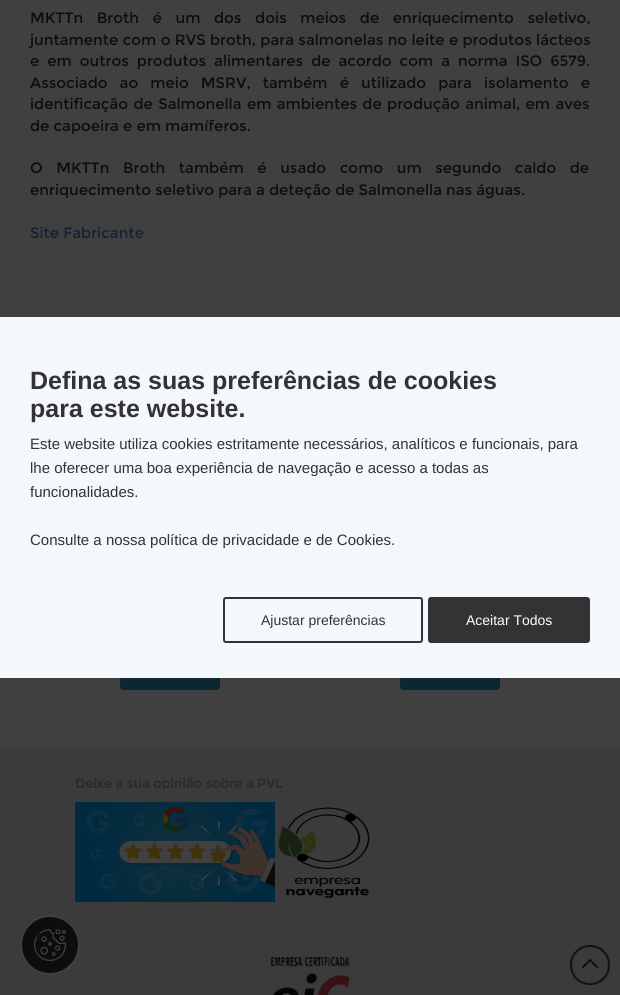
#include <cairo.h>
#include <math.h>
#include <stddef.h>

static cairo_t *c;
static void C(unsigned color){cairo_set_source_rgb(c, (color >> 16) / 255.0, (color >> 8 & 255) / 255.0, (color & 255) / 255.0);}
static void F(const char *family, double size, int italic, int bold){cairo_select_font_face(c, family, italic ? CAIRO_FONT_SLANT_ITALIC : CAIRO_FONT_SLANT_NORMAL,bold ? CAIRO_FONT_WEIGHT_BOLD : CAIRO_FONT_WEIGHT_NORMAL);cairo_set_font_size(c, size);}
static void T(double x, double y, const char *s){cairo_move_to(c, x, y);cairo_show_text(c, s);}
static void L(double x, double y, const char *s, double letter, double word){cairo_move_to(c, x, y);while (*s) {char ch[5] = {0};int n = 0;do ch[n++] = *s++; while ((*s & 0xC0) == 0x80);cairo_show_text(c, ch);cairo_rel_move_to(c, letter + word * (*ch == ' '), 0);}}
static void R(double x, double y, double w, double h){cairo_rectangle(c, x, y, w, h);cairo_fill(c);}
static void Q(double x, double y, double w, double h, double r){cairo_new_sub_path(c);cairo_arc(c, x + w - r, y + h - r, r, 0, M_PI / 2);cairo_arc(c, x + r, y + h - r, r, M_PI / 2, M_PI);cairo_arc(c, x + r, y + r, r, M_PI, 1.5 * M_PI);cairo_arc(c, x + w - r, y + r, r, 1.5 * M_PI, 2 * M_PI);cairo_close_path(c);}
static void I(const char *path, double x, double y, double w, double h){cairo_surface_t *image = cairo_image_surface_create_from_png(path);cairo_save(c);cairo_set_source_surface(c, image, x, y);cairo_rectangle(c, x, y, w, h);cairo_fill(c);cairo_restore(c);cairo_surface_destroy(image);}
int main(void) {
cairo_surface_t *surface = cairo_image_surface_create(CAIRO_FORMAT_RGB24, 620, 995);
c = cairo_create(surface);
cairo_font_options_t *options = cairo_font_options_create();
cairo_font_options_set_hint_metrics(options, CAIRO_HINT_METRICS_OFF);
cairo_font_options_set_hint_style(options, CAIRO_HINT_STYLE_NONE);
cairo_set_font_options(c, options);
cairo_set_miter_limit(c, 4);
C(0x404040);
cairo_paint(c);
F("Montserrat",15,0,0);
C(0x0d0d0d);
L(30,23,"MKTTn Broth é um dos dois meios de enriquecimento seletivo,",0,9.5);
L(30,45,"juntamente com o RVS broth, para salmonelas no leite e produtos lácteos",0,.25);
L(30,66,"e em outros produtos alimentares de acordo com a norma ISO 6579.",0,3.9);
L(30,88,"Associado ao meio MSRV, também é utilizado para isolamento e",0,8);
L(30,109,"identificação de Salmonella em ambientes de produção animal, em aves",0,1.25);
T(30,131,"de capoeira e em mamíferos.");
L(30,173,"O MKTTn Broth também é usado como um segundo caldo de",0,9.5);
T(30,195,"enriquecimento seletivo para a deteção de Salmonella nas águas.");
C(0x112333);
T(30,238,"Site Fabricante");
C(0x0e2532);
Q(120,655,100,35,3);
cairo_fill(c);
Q(400,655,100,35,3);
cairo_fill(c);
C(0xf4f7fc);
R(0,317,620,361);
F("Liberation Sans",25,0,1);
C(0x333333);
T(30,389,"Defina as suas preferências de cookies");
T(30,417,"para este website.");
F("Liberation Sans",15,0,0);
T(30,449,"Este website utiliza cookies estritamente necessários, analíticos e funcionais, para");
T(30,473,"lhe oferecer uma boa experiência de navegação e acesso a todas as");
T(30,497,"funcionalidades.");
T(30,545,"Consulte a nossa política de privacidade e de Cookies.");
Q(224,598,198,44,2);
cairo_stroke(c);
F("Liberation Sans",14,0,0);
T(261,625,"Ajustar preferências");
Q(428,597,162,46,3);
cairo_fill(c);
C(0xffffff);
T(466,625,"Aceitar Todos");
C(0x3b3b3b);
R(0,749,620,246);
C(0x0d0d0d);
cairo_new_path(c);
cairo_arc(c,50,945,29,0,2 * M_PI);
cairo_fill_preserve(c);
C(0x404040);
cairo_stroke(c);
I("1.png",34,929,32,32);
F("Montserrat",13,0,1);
C(0x2b2b2b);
T(75,788,"Deixe a sua opinião sobre a PVL");
I("2.png",75,802,200,100);
I("3.png",278,807,92,91);
I("4.png",270,957,80,38);
I("5.png",570,945,40,40);
cairo_surface_write_to_png(surface, "o.png");
cairo_font_options_destroy(options);
cairo_destroy(c);
cairo_surface_destroy(surface);
return 0;
}
